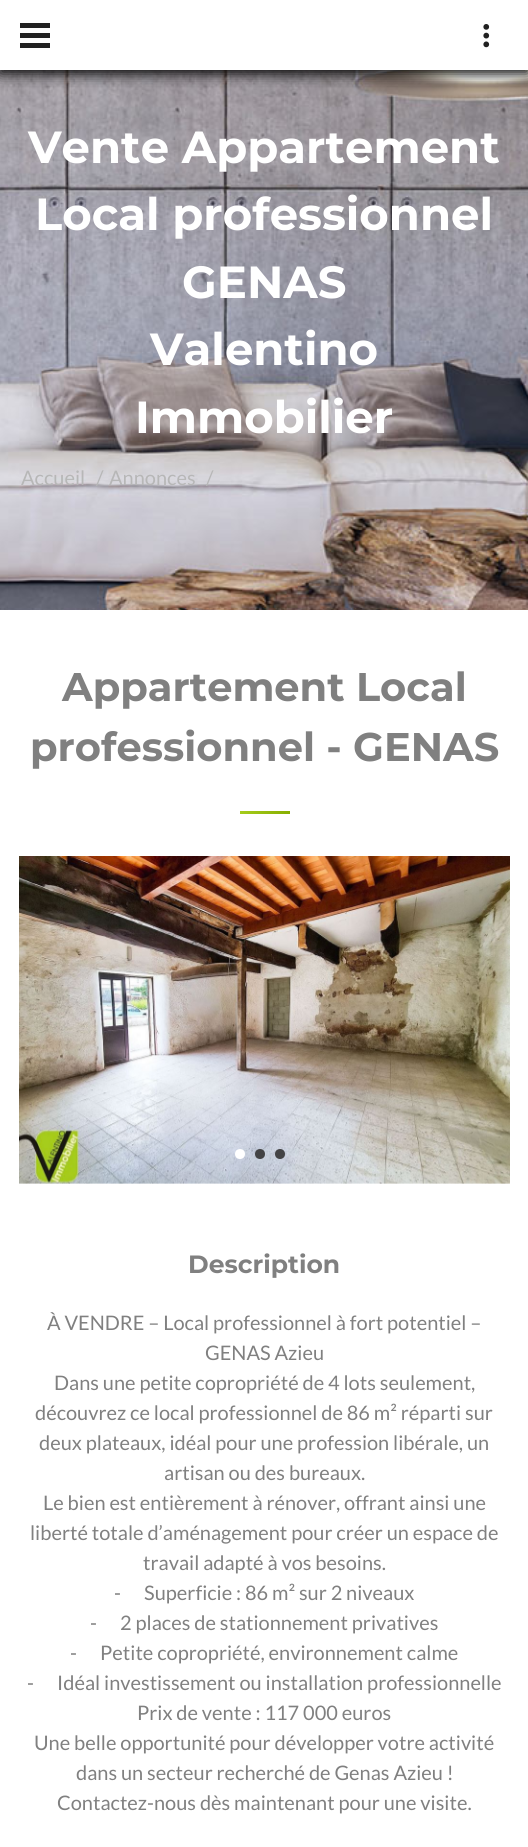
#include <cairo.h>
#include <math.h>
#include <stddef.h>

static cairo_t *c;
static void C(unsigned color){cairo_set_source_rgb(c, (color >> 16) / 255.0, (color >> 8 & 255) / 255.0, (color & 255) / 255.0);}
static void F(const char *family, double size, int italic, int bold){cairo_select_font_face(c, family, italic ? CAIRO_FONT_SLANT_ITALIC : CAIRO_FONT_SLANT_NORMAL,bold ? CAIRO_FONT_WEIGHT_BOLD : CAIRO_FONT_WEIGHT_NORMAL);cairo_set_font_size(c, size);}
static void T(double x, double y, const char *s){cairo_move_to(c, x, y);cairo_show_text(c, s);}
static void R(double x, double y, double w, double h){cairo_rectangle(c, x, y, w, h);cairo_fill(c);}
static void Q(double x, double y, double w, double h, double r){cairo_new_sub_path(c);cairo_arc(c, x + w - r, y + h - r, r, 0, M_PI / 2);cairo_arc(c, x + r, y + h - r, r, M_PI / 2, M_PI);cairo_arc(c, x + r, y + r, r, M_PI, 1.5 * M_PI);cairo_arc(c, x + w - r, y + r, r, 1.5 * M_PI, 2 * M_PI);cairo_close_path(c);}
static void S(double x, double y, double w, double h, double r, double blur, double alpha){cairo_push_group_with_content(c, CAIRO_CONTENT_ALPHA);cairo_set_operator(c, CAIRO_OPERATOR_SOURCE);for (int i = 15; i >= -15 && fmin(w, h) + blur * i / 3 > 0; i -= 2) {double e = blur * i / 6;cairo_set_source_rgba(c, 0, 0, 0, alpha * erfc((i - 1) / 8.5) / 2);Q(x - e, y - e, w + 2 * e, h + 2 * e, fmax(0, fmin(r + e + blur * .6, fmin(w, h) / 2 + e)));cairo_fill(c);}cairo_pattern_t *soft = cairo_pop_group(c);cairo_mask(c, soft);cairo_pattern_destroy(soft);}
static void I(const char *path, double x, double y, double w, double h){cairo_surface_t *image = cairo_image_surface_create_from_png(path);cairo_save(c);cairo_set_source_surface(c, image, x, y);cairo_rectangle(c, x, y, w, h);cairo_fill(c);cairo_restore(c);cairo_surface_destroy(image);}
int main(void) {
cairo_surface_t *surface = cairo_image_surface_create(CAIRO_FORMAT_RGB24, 528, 1847);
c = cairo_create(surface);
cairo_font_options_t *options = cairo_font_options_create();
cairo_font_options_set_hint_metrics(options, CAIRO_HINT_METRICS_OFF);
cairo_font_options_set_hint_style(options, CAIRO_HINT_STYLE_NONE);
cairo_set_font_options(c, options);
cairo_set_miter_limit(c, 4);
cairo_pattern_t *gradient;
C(0xffffff);
cairo_paint(c);
I("2.png",0,70,528,540);
cairo_save(c);
cairo_rectangle(c,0,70,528,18);
cairo_clip(c);
C(0x000000);
S(0,4,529,70,0,7,1);
cairo_restore(c);
C(0x212121);
R(20,33,30,5);
R(20,23,30,5);
R(20,43,30,5);
I("1.png",483,24,7,24);
F("Montserrat",45,0,1);
C(0xffffff);
T(28,163,"Vente Appartement");
T(35,230,"Local professionnel");
T(182,298,"GENAS");
T(150,365,"Valentino");
T(135,433,"Immobilier");
F("Lato",20,0,0);
C(0xb7b7b7);
T(21,485,"Accueil");
T(96,485,"/");
T(109,485,"Annonces");
T(206,485,"/");
F("Montserrat",40,0,1);
C(0x808080);
T(62,701,"Appartement Local");
T(30,761,"professionnel - GENAS");
gradient = cairo_pattern_create_linear(240,813,290,813);
cairo_pattern_add_color_stop_rgba(gradient,0,0.647,0.8,0.106,1);
cairo_pattern_add_color_stop_rgba(gradient,1,0.529,0.682,0,1);
cairo_set_source(c,gradient);
cairo_pattern_destroy(gradient);
R(240,811,50,3);
I("3.png",19,856,491,328);
C(0xffffff);
cairo_arc(c,240,1154,5,0,2 * M_PI);
cairo_fill(c);
C(0x434345);
cairo_arc(c,260,1154,5,0,2 * M_PI);
cairo_fill(c);
cairo_arc(c,280,1154,5,0,2 * M_PI);
cairo_fill(c);
F("Montserrat",25,0,1);
C(0x808080);
T(188,1273,"Description");
F("Lato",20,0,0);
T(47,1330,"À VENDRE – Local professionnel à fort potentiel –");
T(205,1360,"GENAS Azieu");
T(54,1390,"Dans une petite copropriété de 4 lots seulement,");
T(35,1420,"découvrez ce local professionnel de 86 m² réparti sur");
T(39,1450,"deux plateaux, idéal pour une profession libérale, un");
T(164,1480,"artisan ou des bureaux.");
T(43,1510,"Le bien est entièrement à rénover, offrant ainsi une");
T(30,1540,"liberté totale d’aménagement pour créer un espace de");
T(143,1570,"travail adapté à vos besoins.");
T(114,1600,"-      Superficie : 86 m² sur 2 niveaux");
T(90,1630,"-      2 places de stationnement privatives");
T(70,1660,"-      Petite copropriété, environnement calme");
T(27,1690,"-      Idéal investissement ou installation professionnelle");
T(137,1720,"Prix de vente : 117 000 euros");
T(34,1750,"Une belle opportunité pour développer votre activité");
T(76,1780,"dans un secteur recherché de Genas Azieu !");
T(57,1810,"Contactez-nous dès maintenant pour une visite.");
cairo_surface_write_to_png(surface, "o.png");
cairo_font_options_destroy(options);
cairo_destroy(c);
cairo_surface_destroy(surface);
return 0;
}
